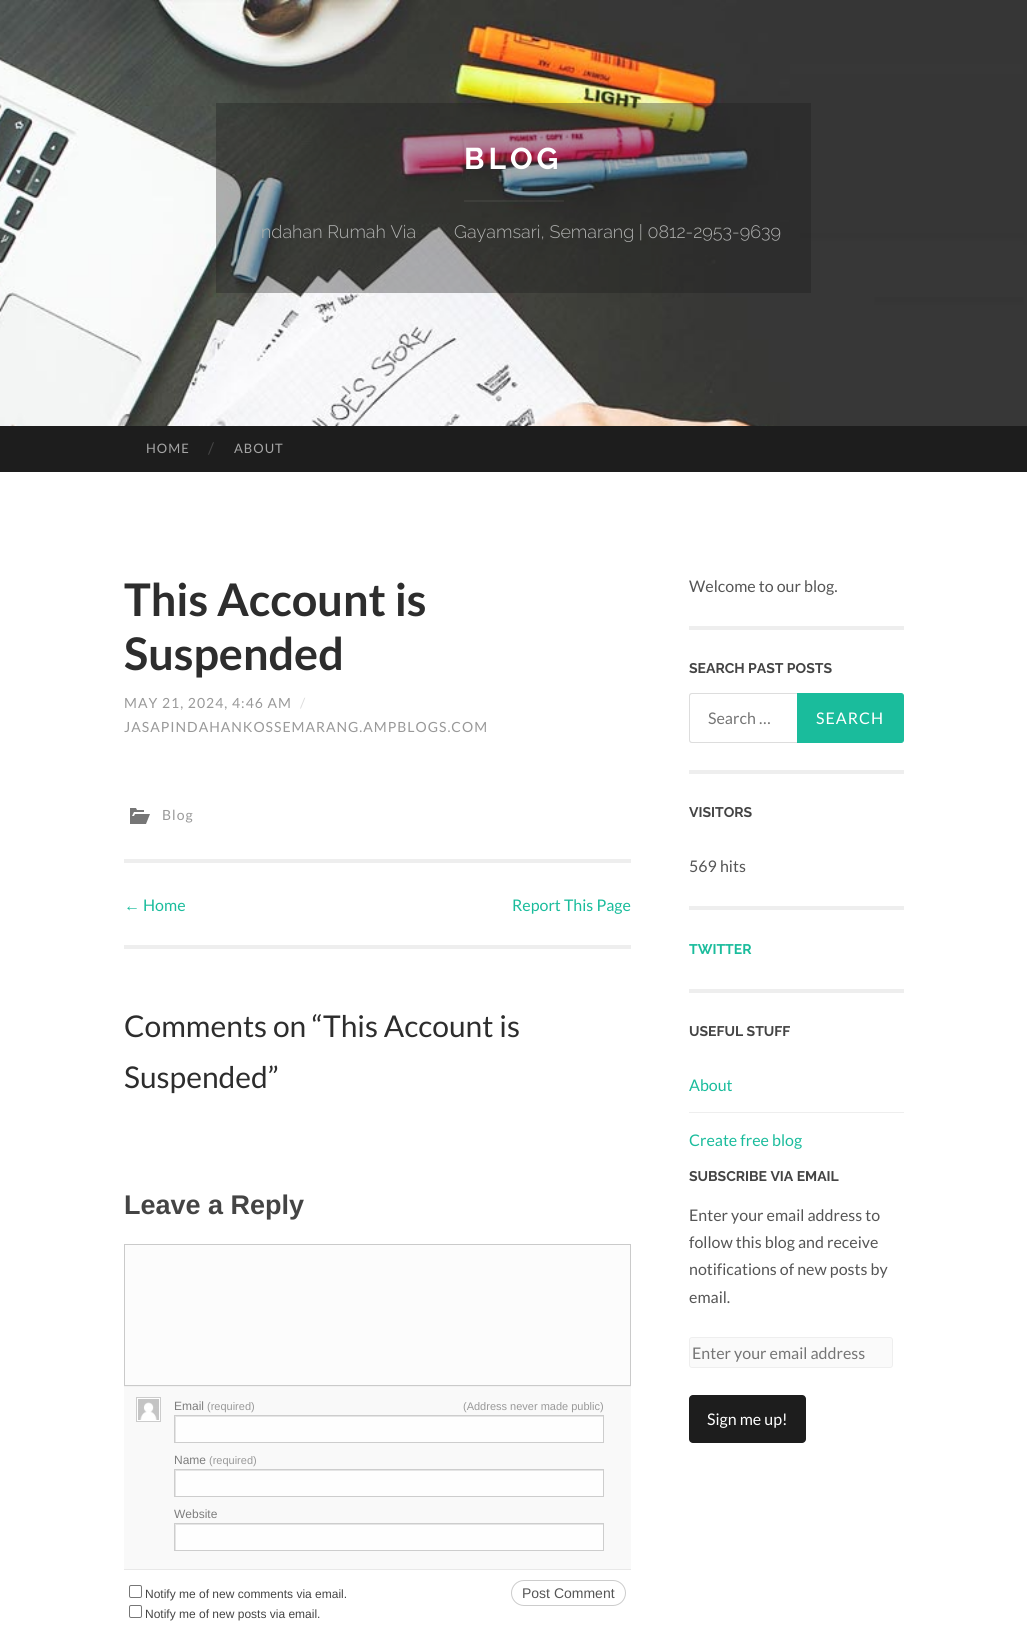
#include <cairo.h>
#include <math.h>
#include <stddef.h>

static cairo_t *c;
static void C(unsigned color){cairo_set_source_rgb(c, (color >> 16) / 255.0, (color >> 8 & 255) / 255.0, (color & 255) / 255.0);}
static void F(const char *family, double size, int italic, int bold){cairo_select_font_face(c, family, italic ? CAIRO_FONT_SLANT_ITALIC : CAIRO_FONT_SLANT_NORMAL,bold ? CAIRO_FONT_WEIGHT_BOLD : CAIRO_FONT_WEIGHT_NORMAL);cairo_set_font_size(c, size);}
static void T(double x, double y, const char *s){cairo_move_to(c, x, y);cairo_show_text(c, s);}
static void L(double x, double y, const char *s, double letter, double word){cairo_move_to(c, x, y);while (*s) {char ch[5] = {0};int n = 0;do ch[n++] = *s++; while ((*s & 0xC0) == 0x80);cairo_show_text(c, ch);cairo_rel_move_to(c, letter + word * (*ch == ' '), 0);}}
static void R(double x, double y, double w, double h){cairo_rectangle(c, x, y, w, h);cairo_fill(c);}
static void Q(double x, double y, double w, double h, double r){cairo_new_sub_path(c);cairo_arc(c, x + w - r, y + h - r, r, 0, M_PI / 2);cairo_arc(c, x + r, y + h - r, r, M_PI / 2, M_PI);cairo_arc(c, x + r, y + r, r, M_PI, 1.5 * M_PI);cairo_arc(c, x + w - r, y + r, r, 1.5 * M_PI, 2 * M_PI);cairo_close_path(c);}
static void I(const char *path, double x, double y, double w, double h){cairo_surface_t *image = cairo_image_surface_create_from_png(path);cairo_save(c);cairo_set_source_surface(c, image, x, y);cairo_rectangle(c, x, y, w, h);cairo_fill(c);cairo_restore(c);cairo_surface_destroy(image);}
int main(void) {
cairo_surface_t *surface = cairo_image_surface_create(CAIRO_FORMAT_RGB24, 1027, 1625);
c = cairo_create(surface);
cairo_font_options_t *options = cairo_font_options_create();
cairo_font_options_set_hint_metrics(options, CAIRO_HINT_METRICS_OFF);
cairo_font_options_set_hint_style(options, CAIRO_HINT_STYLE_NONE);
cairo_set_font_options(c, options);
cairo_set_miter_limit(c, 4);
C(0xffffff);
cairo_paint(c);
I("1.png",0,0,1027,426);
cairo_set_source_rgba(c,0.114,0.114,0.114,0.34);
R(216,103,595,190);
F("Raleway",30,0,1);
C(0xffffff);
L(464,169,"BLOG",4,0);
cairo_set_source_rgba(c,1,1,1,0.06);
R(464,200,100,2);
F("Raleway Light",18,0,0);
C(0xb0b1b0);
T(261,238,"ndahan Rumah Via");
T(454,238,"Gayamsari, Semarang | 0812-2953-9639");
C(0x1d1d1d);
R(0,426,1027,46);
F("Lato",13,0,0);
C(0xa5a5a5);
L(146,453,"HOME",1,0);
F("Lato",16,0,0);
C(0x444444);
T(208,454,"/");
F("Lato",13,0,0);
C(0xa5a5a5);
L(234,453,"ABOUT",1,0);
F("Lato",45,0,1);
C(0x2d2d2d);
T(124,616,"This Account is");
T(124,670,"Suspended");
F("Lato",14,0,0);
C(0x999999);
L(124,708,"MAY 21, 2024, 4:46 AM",1,0);
C(0xdddddd);
L(300,708,"/",1,0);
C(0x999999);
L(124,732,"JASAPINDAHANKOSSEMARANG.AMPBLOGS.COM",1,0);
I("2.png",130,808,20,16);
L(162,820,"Blog",1,0);
C(0xeeeeee);
R(124,859,507,4);
R(124,945,507,4);
F("Liberation Sans",16,0,0);
C(0x1abc9c);
T(124,911,"←");
F("Lato",16,0,0);
T(143,911,"Home");
T(512,911,"Report This Page");
F("Lato",30,0,0);
C(0x2d2d2d);
T(124,1037,"Comments on “This Account is");
T(124,1088,"Suspended”");
F("Liberation Sans",27,0,1);
C(0x444444);
T(124,1214,"Leave a Reply");
C(0xfcfcfc);
cairo_rectangle(c,124.5,1244.5,506,141);
cairo_fill_preserve(c);
C(0xcacaca);
cairo_set_line_width(c,1);
cairo_stroke(c);
C(0xf2f2f2);
R(124,1386,507,1);
C(0xf9f9f9);
R(124,1387,507,182);
C(0xe8e8e8);
R(124,1569,507,1);
C(0xffffff);
cairo_rectangle(c,136.5,1397.5,24,24);
cairo_fill_preserve(c);
C(0xcccccc);
cairo_stroke(c);
I("3.png",138,1399,21,21);
F("Liberation Sans",12,0,0);
C(0x7d7d7d);
T(174,1410,"Email");
F("Liberation Sans",11,0,0);
C(0x999999);
T(207,1410,"(required)");
T(463,1410,"(Address never made public)");
C(0xfefefe);
R(176,1417,427,25);
cairo_save(c);
cairo_rectangle(c,175,1416,428,26);
cairo_clip(c);
C(0xe5e5e5);
cairo_set_fill_rule(c,CAIRO_FILL_RULE_EVEN_ODD);
cairo_new_path(c);
cairo_move_to(c,76,1317);
cairo_line_to(c,702,1317);
cairo_line_to(c,702,1541);
cairo_line_to(c,76,1541);
cairo_close_path(c);
cairo_move_to(c,176,1417);
cairo_line_to(c,604,1417);
cairo_line_to(c,604,1443);
cairo_line_to(c,176,1443);
cairo_close_path(c);
cairo_fill(c);
cairo_restore(c);
cairo_rectangle(c,174.5,1415.5,429,27);
C(0xcdcdcd);
cairo_stroke(c);
F("Liberation Sans",12,0,0);
C(0x7d7d7d);
T(174,1464,"Name");
F("Liberation Sans",11,0,0);
C(0x999999);
T(209,1464,"(required)");
C(0xfefefe);
R(176,1471,427,25);
cairo_save(c);
cairo_rectangle(c,175,1470,428,26);
cairo_clip(c);
C(0xe5e5e5);
cairo_set_fill_rule(c,CAIRO_FILL_RULE_EVEN_ODD);
cairo_new_path(c);
cairo_move_to(c,76,1371);
cairo_line_to(c,702,1371);
cairo_line_to(c,702,1595);
cairo_line_to(c,76,1595);
cairo_close_path(c);
cairo_move_to(c,176,1471);
cairo_line_to(c,604,1471);
cairo_line_to(c,604,1497);
cairo_line_to(c,176,1497);
cairo_close_path(c);
cairo_fill(c);
cairo_restore(c);
cairo_rectangle(c,174.5,1469.5,429,27);
C(0xcdcdcd);
cairo_stroke(c);
F("Liberation Sans",12,0,0);
C(0x7d7d7d);
T(174,1518,"Website");
C(0xfefefe);
R(176,1525,427,25);
cairo_save(c);
cairo_rectangle(c,175,1524,428,26);
cairo_clip(c);
C(0xe5e5e5);
cairo_set_fill_rule(c,CAIRO_FILL_RULE_EVEN_ODD);
cairo_new_path(c);
cairo_move_to(c,76,1425);
cairo_line_to(c,702,1425);
cairo_line_to(c,702,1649);
cairo_line_to(c,76,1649);
cairo_close_path(c);
cairo_move_to(c,176,1525);
cairo_line_to(c,604,1525);
cairo_line_to(c,604,1551);
cairo_line_to(c,176,1551);
cairo_close_path(c);
cairo_fill(c);
cairo_restore(c);
cairo_rectangle(c,174.5,1523.5,429,27);
C(0xcdcdcd);
cairo_stroke(c);
Q(129.5,1585.5,12,12,1.5);
C(0x767676);
cairo_stroke(c);
C(0x444444);
T(145,1598,"Notify me of new comments via email.");
Q(129.5,1605.5,12,12,1.5);
C(0x767676);
cairo_stroke(c);
C(0x444444);
T(145,1618,"Notify me of new posts via email.");
Q(511.5,1580.5,114,25,12.5);
C(0xcccccc);
cairo_stroke(c);
F("Liberation Sans",14,0,0);
C(0x555555);
T(522,1598,"Post Comment");
C(0xeeeeee);
R(689,626,215,4);
F("Lato",16,0,0);
C(0x555555);
T(689,592,"Welcome to our blog.");
C(0xeeeeee);
R(689,770,215,4);
F("Raleway",14,0,1);
C(0x444444);
T(689,673,"SEARCH PAST POSTS");
C(0xdddddd);
cairo_set_fill_rule(c,CAIRO_FILL_RULE_EVEN_ODD);
cairo_new_path(c);
cairo_move_to(c,692,693);
cairo_line_to(c,901,693);
cairo_line_to(c,901,743);
cairo_line_to(c,692,743);
cairo_curve_to(c,690,743,689,742,689,740);
cairo_line_to(c,689,696);
cairo_curve_to(c,689,694,690,693,692,693);
cairo_close_path(c);
cairo_move_to(c,692,694);
cairo_line_to(c,901,694);
cairo_line_to(c,901,742);
cairo_line_to(c,692,742);
cairo_curve_to(c,691,742,690,741,690,740);
cairo_line_to(c,690,696);
cairo_curve_to(c,690,695,691,694,692,694);
cairo_close_path(c);
cairo_fill(c);
F("Lato",16,0,0);
C(0x757575);
T(708,724,"Search …");
C(0x1abc9c);
cairo_new_path(c);
cairo_move_to(c,797.5,693.5);
cairo_line_to(c,901,693.5);
cairo_curve_to(c,902.5,693.5,903.5,694.5,903.5,696);
cairo_line_to(c,903.5,740);
cairo_curve_to(c,903.5,741.5,902.5,742.5,901,742.5);
cairo_line_to(c,797.5,742.5);
cairo_close_path(c);
cairo_fill_preserve(c);
cairo_stroke(c);
C(0xffffff);
L(816,724,"SEARCH",1,0);
C(0xeeeeee);
R(689,906,215,4);
F("Raleway",14,0,1);
C(0x444444);
T(689,817,"VISITORS");
F("Lato",16,0,0);
C(0x555555);
T(689,872,"569 hits");
C(0xeeeeee);
R(689,989,215,4);
F("Raleway",14,0,1);
C(0x1abc9c);
T(689,954,"TWITTER");
C(0x444444);
T(689,1036,"USEFUL STUFF");
F("Lato",16,0,0);
C(0x1abc9c);
T(689,1091,"About");
C(0xeeeeee);
R(689,1112,215,1);
C(0x1abc9c);
T(689,1146,"Create free blog");
F("Raleway",14,0,1);
C(0x444444);
T(689,1181,"SUBSCRIBE VIA EMAIL");
F("Lato",16,0,0);
C(0x555555);
T(689,1221,"Enter your email address to");
T(689,1248,"follow this blog and receive");
T(689,1275,"notifications of new posts by");
T(689,1303,"email.");
C(0xfafafa);
Q(689.5,1337.5,203,30,2.5);
cairo_fill_preserve(c);
C(0xeeeeee);
cairo_stroke(c);
C(0x757575);
T(692,1359,"Enter your email address");
C(0x1d1d1d);
Q(689,1395,117,48,4);
cairo_fill(c);
C(0xffffff);
T(707,1425,"Sign me up!");
cairo_surface_write_to_png(surface, "o.png");
cairo_font_options_destroy(options);
cairo_destroy(c);
cairo_surface_destroy(surface);
return 0;
}
